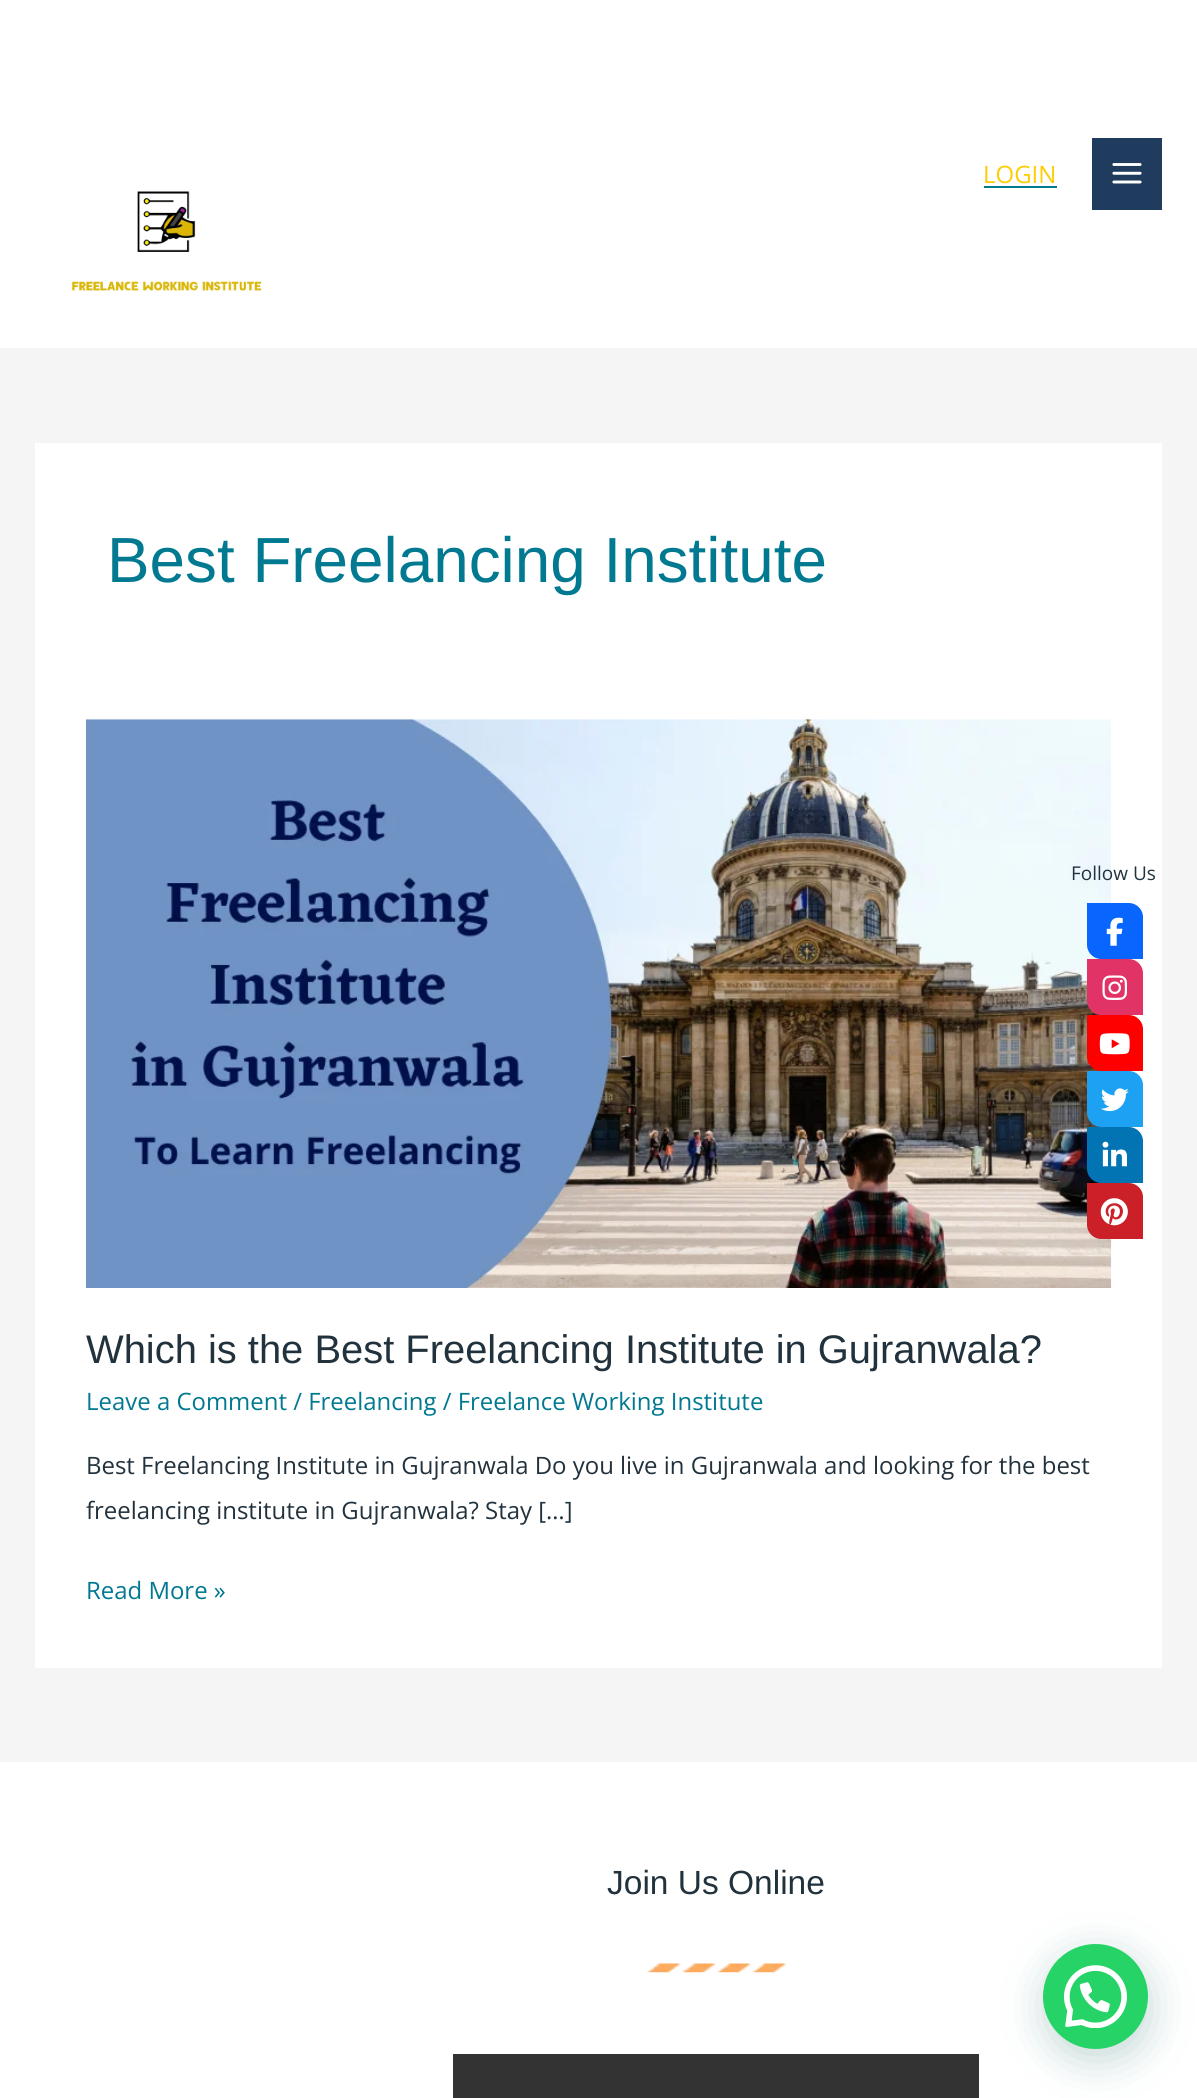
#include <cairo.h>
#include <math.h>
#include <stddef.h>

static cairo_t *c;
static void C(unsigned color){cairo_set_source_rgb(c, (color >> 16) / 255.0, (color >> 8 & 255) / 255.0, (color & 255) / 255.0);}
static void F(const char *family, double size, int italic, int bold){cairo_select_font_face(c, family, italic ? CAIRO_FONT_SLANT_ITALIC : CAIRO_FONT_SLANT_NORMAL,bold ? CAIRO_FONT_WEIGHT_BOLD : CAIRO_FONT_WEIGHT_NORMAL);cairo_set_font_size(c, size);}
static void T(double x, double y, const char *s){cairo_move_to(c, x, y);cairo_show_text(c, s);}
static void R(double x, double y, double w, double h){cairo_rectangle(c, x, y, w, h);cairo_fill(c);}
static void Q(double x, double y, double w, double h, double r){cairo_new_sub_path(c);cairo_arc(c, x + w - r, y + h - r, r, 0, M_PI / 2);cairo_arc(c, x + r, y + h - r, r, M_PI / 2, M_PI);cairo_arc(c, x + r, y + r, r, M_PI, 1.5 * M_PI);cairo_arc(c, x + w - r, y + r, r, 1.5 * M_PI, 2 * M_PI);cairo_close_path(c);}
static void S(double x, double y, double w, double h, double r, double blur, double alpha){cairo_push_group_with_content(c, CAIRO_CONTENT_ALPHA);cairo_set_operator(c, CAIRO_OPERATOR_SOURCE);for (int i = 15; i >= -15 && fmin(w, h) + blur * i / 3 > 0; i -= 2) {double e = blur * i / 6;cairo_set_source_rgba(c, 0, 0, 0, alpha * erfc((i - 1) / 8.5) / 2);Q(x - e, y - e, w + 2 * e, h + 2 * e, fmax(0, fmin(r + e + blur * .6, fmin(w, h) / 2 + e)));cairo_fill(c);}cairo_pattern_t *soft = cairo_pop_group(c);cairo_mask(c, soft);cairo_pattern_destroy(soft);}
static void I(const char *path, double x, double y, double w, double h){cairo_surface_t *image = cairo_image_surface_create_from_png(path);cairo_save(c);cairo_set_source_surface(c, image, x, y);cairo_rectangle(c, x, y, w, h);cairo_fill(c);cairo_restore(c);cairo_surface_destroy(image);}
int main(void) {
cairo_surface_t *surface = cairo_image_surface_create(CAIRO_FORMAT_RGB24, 1197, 2098);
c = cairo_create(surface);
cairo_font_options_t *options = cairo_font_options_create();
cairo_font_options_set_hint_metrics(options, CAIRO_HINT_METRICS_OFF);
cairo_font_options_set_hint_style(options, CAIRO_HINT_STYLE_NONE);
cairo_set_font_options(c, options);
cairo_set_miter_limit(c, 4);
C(0xf5f5f5);
cairo_paint(c);
C(0xffffff);
R(0,0,1197,348);
F("Open Sans",23.95,0,0);
C(0xffcc00);
T(983,183,"LOGIN");
C(0x007991);
R(984,186,73,2);
C(0x1f3c5f);
R(1092,138,70,72);
I("1.png",1112,163,30,21);
I("2.png",71,191,191,100);
C(0xffffff);
R(35,443,1127,1225);
F("Liberation Sans",63.8,0,0);
C(0x007991);
T(107,582,"Best Freelancing Institute");
I("3.png",85,719,1027,569);
F("Liberation Sans",39.9,0,0);
C(0x22323d);
T(86,1363,"Which is the Best Freelancing Institute in Gujranwala?");
F("Open Sans",23.95,0,0);
C(0x007991);
T(86,1410,"Leave a Comment / Freelancing / Freelance Working Institute");
C(0x22323d);
T(86,1474,"Best Freelancing Institute in Gujranwala Do you live in Gujranwala and looking for the best");
T(86,1519,"freelancing institute in Gujranwala? Stay […]");
C(0x007991);
T(86,1599,"Read More »");
C(0xffffff);
R(0,1762,1197,336);
F("Liberation Sans",33.5,0,0);
C(0x22323d);
T(607,1894,"Join Us Online");
I("4.png",646,1963,140,10);
C(0x333333);
R(453,2054,526,44);
F("Open Sans",19,0,0);
C(0x22323d);
T(1071,880,"Follow Us");
C(0x0866ff);
cairo_new_path(c);
cairo_move_to(c,1087,903);
cairo_line_to(c,1129,903);
cairo_curve_to(c,1136.5,903,1143,909.5,1143,917);
cairo_line_to(c,1143,959);
cairo_line_to(c,1101,959);
cairo_curve_to(c,1093.5,959,1087,952.5,1087,945);
cairo_close_path(c);
cairo_fill(c);
I("5.png",1106,917,17,29);
C(0xe23367);
cairo_new_path(c);
cairo_move_to(c,1087,959);
cairo_line_to(c,1129,959);
cairo_curve_to(c,1136.5,959,1143,965.5,1143,973);
cairo_line_to(c,1143,1015);
cairo_line_to(c,1101,1015);
cairo_curve_to(c,1093.5,1015,1087,1008.5,1087,1001);
cairo_close_path(c);
cairo_fill(c);
I("6.png",1102,975,25,25);
C(0xff0000);
cairo_new_path(c);
cairo_move_to(c,1087,1015);
cairo_line_to(c,1129,1015);
cairo_curve_to(c,1136.5,1015,1143,1021.5,1143,1029);
cairo_line_to(c,1143,1071);
cairo_line_to(c,1101,1071);
cairo_curve_to(c,1093.5,1071,1087,1064.5,1087,1057);
cairo_close_path(c);
cairo_fill(c);
I("7.png",1099,1033,31,22);
C(0x1da1f2);
cairo_new_path(c);
cairo_move_to(c,1087,1071);
cairo_line_to(c,1129,1071);
cairo_curve_to(c,1136.5,1071,1143,1077.5,1143,1085);
cairo_line_to(c,1143,1127);
cairo_line_to(c,1101,1127);
cairo_curve_to(c,1093.5,1127,1087,1120.5,1087,1113);
cairo_close_path(c);
cairo_fill(c);
I("8.png",1101,1088,28,24);
C(0x0274b3);
cairo_new_path(c);
cairo_move_to(c,1087,1127);
cairo_line_to(c,1129,1127);
cairo_curve_to(c,1136.5,1127,1143,1133.5,1143,1141);
cairo_line_to(c,1143,1183);
cairo_line_to(c,1101,1183);
cairo_curve_to(c,1093.5,1183,1087,1176.5,1087,1169);
cairo_close_path(c);
cairo_fill(c);
I("9.png",1102,1141,25,26);
C(0xcb2027);
cairo_new_path(c);
cairo_move_to(c,1087,1183);
cairo_line_to(c,1129,1183);
cairo_curve_to(c,1136.5,1183,1143,1189.5,1143,1197);
cairo_line_to(c,1143,1239);
cairo_line_to(c,1101,1239);
cairo_curve_to(c,1093.5,1239,1087,1232.5,1087,1225);
cairo_close_path(c);
cairo_fill(c);
I("10.png",1100,1198,28,28);
C(0x075e54);
S(1045,1955,105,105,52.5,21,.24);
C(0x25d366);
cairo_arc(c,1095.5,1996.5,52.5,0,2 * M_PI);
cairo_fill(c);
I("11.png",1064,1965,63,63);
cairo_surface_write_to_png(surface, "o.png");
cairo_font_options_destroy(options);
cairo_destroy(c);
cairo_surface_destroy(surface);
return 0;
}
